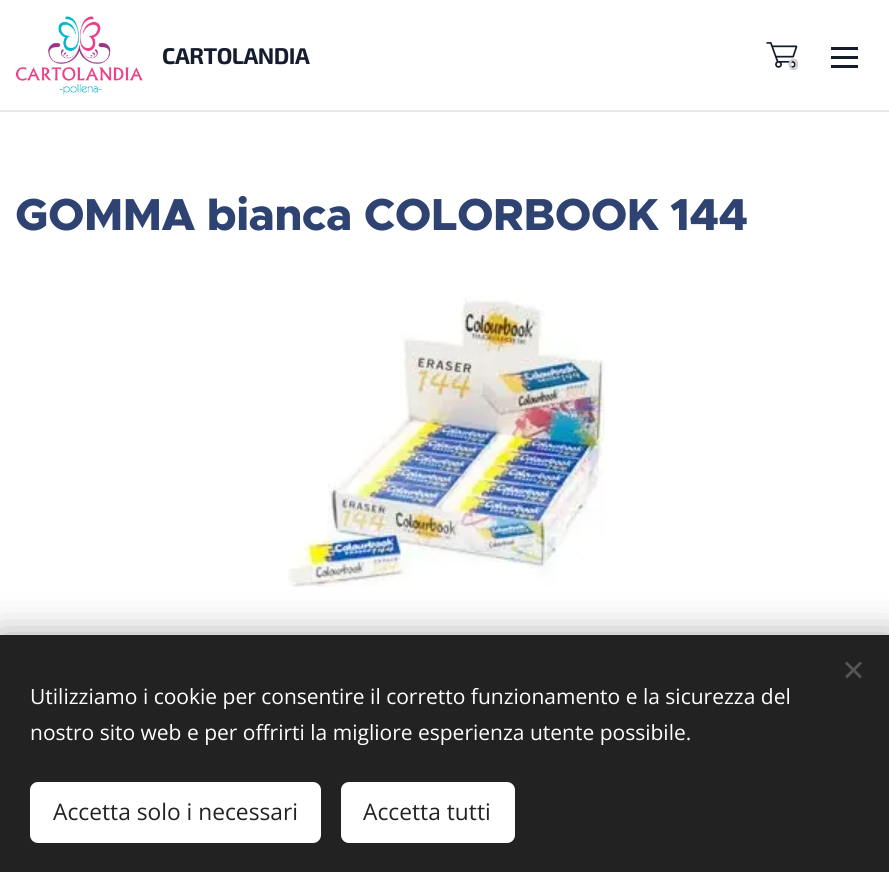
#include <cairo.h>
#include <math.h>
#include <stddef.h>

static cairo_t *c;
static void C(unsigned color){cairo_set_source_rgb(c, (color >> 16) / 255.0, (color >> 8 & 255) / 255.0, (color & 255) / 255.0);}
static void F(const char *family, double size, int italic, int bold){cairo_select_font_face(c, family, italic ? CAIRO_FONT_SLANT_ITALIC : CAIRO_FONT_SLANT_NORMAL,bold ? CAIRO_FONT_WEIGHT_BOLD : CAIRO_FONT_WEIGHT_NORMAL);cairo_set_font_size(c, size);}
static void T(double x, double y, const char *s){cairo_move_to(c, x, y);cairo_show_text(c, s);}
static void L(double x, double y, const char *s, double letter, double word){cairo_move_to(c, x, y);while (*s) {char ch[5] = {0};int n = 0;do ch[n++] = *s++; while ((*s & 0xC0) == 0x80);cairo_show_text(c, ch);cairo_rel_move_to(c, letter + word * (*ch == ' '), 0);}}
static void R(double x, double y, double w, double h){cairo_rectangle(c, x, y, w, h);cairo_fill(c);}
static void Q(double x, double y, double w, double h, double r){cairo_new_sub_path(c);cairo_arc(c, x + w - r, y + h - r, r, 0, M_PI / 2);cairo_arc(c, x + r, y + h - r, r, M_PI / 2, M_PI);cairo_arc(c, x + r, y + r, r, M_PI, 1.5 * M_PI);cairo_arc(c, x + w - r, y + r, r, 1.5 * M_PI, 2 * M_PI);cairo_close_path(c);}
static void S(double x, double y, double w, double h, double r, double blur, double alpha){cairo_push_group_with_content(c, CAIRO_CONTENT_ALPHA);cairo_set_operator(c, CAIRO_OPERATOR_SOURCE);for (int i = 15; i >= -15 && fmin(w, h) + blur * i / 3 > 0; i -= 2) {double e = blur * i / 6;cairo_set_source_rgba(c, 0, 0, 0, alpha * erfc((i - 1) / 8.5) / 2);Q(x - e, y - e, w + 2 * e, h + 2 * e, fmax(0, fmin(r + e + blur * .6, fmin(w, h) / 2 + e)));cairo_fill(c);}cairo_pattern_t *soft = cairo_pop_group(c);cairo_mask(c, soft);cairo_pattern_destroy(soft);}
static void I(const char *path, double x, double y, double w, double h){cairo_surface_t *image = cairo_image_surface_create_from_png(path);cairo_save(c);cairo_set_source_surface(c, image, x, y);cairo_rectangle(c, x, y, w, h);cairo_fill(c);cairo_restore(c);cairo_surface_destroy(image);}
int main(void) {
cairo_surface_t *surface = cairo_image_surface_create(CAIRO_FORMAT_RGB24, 889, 872);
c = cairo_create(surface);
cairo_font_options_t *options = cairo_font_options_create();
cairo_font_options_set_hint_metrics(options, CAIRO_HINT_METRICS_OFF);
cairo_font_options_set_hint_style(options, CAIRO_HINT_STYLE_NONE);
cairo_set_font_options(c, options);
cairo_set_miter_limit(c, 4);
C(0xffffff);
cairo_paint(c);
I("1.png",15,16,128,79);
F("Exo 2",22.75,0,1);
C(0x141c2d);
L(162,64,"CARTOLANDIA",-.5,0);
I("2.png",766,42,32,26);
F("Montserrat",16,0,1);
C(0xcdced2);
T(788,70,"0");
C(0x141c2d);
R(831,56,27,3);
R(831,47,27,3);
R(831,65,27,3);
C(0xe8e8e8);
R(0,110,889,2);
F("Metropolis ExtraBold",45,0,0);
C(0x2e4371);
L(15,230,"GOMMA bianca COLORBOOK 144",-.5,0);
I("3.png",288,298,317,289);
C(0x000000);
S(0,635,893,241,0,19,.33);
C(0x222222);
R(0,635,889,237);
C(0x555555);
cairo_new_path(c);
cairo_move_to(c,845,676.5);
cairo_line_to(c,860,661.5);
cairo_line_to(c,862,663.5);
cairo_line_to(c,847,678.5);
cairo_close_path(c);
cairo_fill(c);
cairo_new_path(c);
cairo_move_to(c,847,661.5);
cairo_line_to(c,862,676.5);
cairo_line_to(c,860,678.5);
cairo_line_to(c,845,663.5);
cairo_close_path(c);
cairo_fill(c);
F("Open Sans",21,0,0);
C(0xffffff);
T(30,704,"Utilizziamo i cookie per consentire il corretto funzionamento e la sicurezza del");
T(30,740,"nostro sito web e per offrirti la migliore esperienza utente possibile.");
Q(30,782,291,61,8);
cairo_fill(c);
F("Open Sans",22.75,0,0);
C(0x222222);
T(53,820,"Accetta solo i necessari");
C(0xffffff);
Q(341,782,174,61,8);
cairo_fill(c);
C(0x222222);
T(363,820,"Accetta tutti");
cairo_surface_write_to_png(surface, "o.png");
cairo_font_options_destroy(options);
cairo_destroy(c);
cairo_surface_destroy(surface);
return 0;
}
